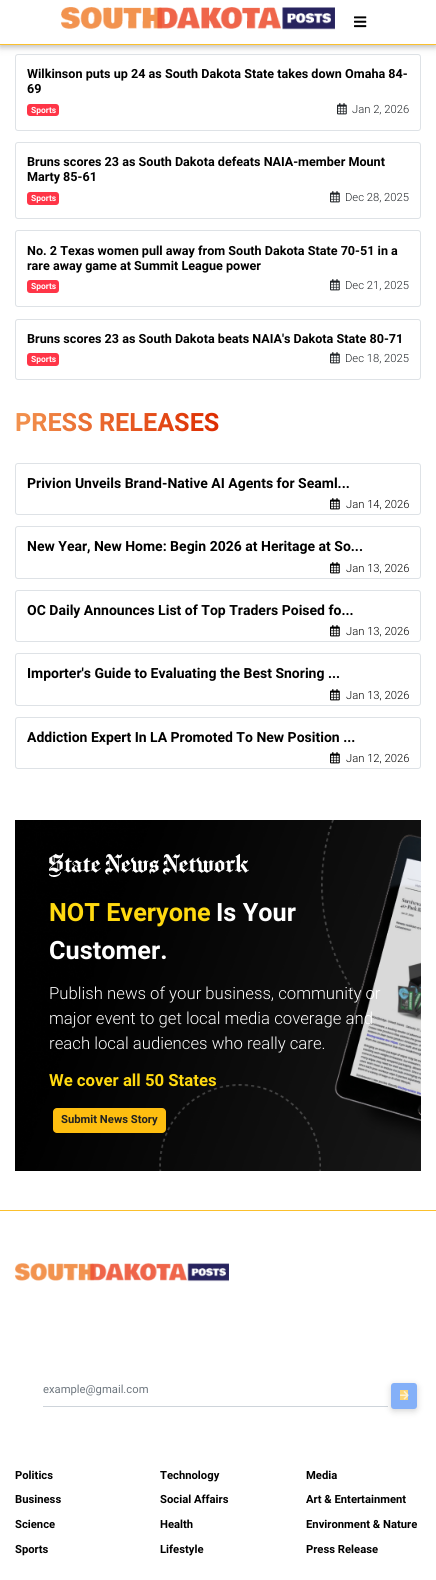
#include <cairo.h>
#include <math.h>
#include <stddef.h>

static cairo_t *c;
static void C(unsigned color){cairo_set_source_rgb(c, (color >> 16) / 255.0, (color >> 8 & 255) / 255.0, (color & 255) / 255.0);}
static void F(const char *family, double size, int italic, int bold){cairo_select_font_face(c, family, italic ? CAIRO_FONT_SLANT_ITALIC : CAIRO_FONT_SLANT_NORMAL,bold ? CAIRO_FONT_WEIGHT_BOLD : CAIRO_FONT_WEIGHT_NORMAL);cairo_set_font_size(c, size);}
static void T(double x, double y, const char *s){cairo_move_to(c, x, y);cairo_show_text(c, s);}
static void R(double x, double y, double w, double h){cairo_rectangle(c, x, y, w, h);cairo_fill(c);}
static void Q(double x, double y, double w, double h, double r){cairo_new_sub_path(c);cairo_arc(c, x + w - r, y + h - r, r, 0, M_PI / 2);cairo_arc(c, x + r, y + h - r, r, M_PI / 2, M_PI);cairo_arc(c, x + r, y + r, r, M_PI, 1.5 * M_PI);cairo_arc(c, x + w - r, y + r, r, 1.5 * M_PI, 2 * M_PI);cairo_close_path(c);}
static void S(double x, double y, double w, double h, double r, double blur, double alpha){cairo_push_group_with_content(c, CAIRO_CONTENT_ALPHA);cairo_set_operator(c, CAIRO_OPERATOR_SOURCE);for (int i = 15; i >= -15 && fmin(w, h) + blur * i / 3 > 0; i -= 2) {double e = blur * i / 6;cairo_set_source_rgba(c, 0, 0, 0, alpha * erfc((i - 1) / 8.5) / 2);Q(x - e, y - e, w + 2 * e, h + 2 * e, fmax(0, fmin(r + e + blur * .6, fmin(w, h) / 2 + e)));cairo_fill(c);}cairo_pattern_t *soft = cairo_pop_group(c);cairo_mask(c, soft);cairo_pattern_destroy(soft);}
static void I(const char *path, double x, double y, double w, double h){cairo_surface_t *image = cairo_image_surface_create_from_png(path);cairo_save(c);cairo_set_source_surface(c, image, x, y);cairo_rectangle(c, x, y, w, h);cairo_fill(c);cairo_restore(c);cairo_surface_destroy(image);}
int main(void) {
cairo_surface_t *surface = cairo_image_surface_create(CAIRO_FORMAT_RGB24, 436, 1580);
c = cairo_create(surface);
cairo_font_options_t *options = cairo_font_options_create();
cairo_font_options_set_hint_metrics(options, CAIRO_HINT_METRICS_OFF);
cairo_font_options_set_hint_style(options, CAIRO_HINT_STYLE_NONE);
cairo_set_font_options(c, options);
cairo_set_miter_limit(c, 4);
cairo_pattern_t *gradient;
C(0xffffff);
cairo_paint(c);
Q(15.5,54.5,405,76,2.5);
C(0xdee2e6);
cairo_set_line_width(c,1);
cairo_stroke(c);
C(0x000000);
S(0,2,436,45,0,5,.12);
S(0,2,436,45,0,2.5,.16);
C(0xffffff);
R(0,0,436,44);
C(0xfbc02d);
R(0,44,436,1);
I("1.png",61,7,274,23);
I("2.png",354,16,13,12);
F("Roboto",12.6,0,1);
C(0x000000);
T(27,78,"Wilkinson puts up 24 as South Dakota State takes down Omaha 84-");
T(27,93,"69");
C(0xff3547);
Q(27,104,32,12,3);
cairo_fill(c);
F("Roboto",8.5,0,1);
C(0xffffff);
T(31,113,"Sports");
I("3.png",337,103,10,12);
F("Roboto Light",11.25,0,0);
C(0x212529);
T(352,113,"Jan 2, 2026");
Q(15.5,142.5,405,76,2.5);
C(0xdee2e6);
cairo_stroke(c);
F("Roboto",12.6,0,1);
C(0x000000);
T(27,166,"Bruns scores 23 as South Dakota defeats NAIA-member Mount");
T(27,181,"Marty 85-61");
C(0xff3547);
Q(27,192,32,13,3);
cairo_fill(c);
F("Roboto",8.5,0,1);
C(0xffffff);
T(31,201,"Sports");
I("3.png",330,191,10,12);
F("Roboto Light",11.25,0,0);
C(0x212529);
T(345,201,"Dec 28, 2025");
Q(15.5,230.5,405,76,2.5);
C(0xdee2e6);
cairo_stroke(c);
F("Roboto",12.6,0,1);
C(0x000000);
T(27,255,"No. 2 Texas women pull away from South Dakota State 70-51 in a");
T(27,270,"rare away game at Summit League power");
C(0xff3547);
Q(27,280,32,13,3);
cairo_fill(c);
F("Roboto",8.5,0,1);
C(0xffffff);
T(31,289,"Sports");
I("3.png",330,279,10,12);
F("Roboto Light",11.25,0,0);
C(0x212529);
T(345,289,"Dec 21, 2025");
Q(15.5,319.5,405,60,2.5);
C(0xdee2e6);
cairo_stroke(c);
F("Roboto",12.6,0,1);
C(0x000000);
T(27,343,"Bruns scores 23 as South Dakota beats NAIA's Dakota State 80-71");
C(0xff3547);
Q(27,353,32,13,3);
cairo_fill(c);
F("Roboto",8.5,0,1);
C(0xffffff);
T(31,362,"Sports");
I("3.png",330,352,10,12);
F("Roboto Light",11.25,0,0);
C(0x212529);
T(345,362,"Dec 18, 2025");
F("Roboto",25.25,0,1);
gradient = cairo_pattern_create_linear(15,423,219,423);
cairo_pattern_add_color_stop_rgba(gradient,0,0.949,0.576,0.31,1);
cairo_pattern_add_color_stop_rgba(gradient,1,0.867,0.173,0,1);
cairo_set_source(c,gradient);
cairo_pattern_destroy(gradient);
T(15,431,"PRESS RELEASES");
Q(15.5,463.5,405,51,2.5);
C(0xdee2e6);
cairo_stroke(c);
F("Roboto",14,0,1);
C(0x000000);
T(27,488,"Privion Unveils Brand-Native AI Agents for Seaml...");
I("4.png",330,498,10,12);
F("Roboto Light",11.25,0,0);
T(346,508,"Jan 14, 2026");
Q(15.5,526.5,405,52,2.5);
C(0xdee2e6);
cairo_stroke(c);
F("Roboto",14,0,1);
C(0x000000);
T(27,551,"New Year, New Home: Begin 2026 at Heritage at So...");
I("4.png",330,562,10,12);
F("Roboto Light",11.25,0,0);
T(346,572,"Jan 13, 2026");
Q(15.5,590.5,405,51,2.5);
C(0xdee2e6);
cairo_stroke(c);
F("Roboto",14,0,1);
C(0x000000);
T(27,615,"OC Daily Announces List of Top Traders Poised fo...");
I("4.png",330,625,10,12);
F("Roboto Light",11.25,0,0);
T(346,635,"Jan 13, 2026");
Q(15.5,653.5,405,52,2.5);
C(0xdee2e6);
cairo_stroke(c);
F("Roboto",14,0,1);
C(0x000000);
T(27,678,"Importer's Guide to Evaluating the Best Snoring ...");
I("4.png",330,689,10,12);
F("Roboto Light",11.25,0,0);
T(346,699,"Jan 13, 2026");
Q(15.5,717.5,405,51,2.5);
C(0xdee2e6);
cairo_stroke(c);
F("Roboto",14,0,1);
C(0x000000);
T(27,742,"Addiction Expert In LA Promoted To New Position ...");
I("4.png",330,752,10,12);
F("Roboto Light",11.25,0,0);
T(346,762,"Jan 12, 2026");
I("5.png",15,820,406,351);
I("6.png",49,853,200,24);
F("Roboto",25.25,0,1);
C(0xffd910);
T(49,921,"NOT Everyone");
C(0xffffff);
T(216,921,"Is Your");
T(49,959,"Customer.");
F("Roboto Light",16.75,0,0);
T(49,999,"Publish news of your business, community or");
T(49,1024,"major event to get local media coverage and");
T(49,1049,"reach local audiences who really care.");
F("Roboto",16.75,0,1);
C(0xffd910);
T(49,1086,"We cover all 50 States");
C(0xfebe10);
Q(53,1108,113,25,4);
cairo_fill(c);
F("Roboto",11.25,0,1);
C(0x212121);
T(61,1123,"Submit News Story");
C(0xfbc02d);
R(0,1210,436,1);
I("7.png",15,1263,214,19);
C(0xced4da);
R(43,1406,345,1);
F("Roboto",11.25,0,0);
C(0x6c757d);
T(43,1393,"example@gmail.com");
C(0x000000);
S(391,1385,26,26,3,5,.08);
S(391,1385,26,26,3,2.5,.1);
C(0x84b0f8);
Q(391,1383,26,26,3);
cairo_fill(c);
C(0xfcd677);
R(400,1390,8,10);
I("8.png",400,1391,9,9);
F("Roboto",11.25,0,1);
C(0x000000);
T(15,1479,"Politics");
T(15,1503,"Business");
T(15,1528,"Science");
T(15,1553,"Sports");
T(160,1479,"Technology");
T(160,1503,"Social Affairs");
T(160,1528,"Health");
T(160,1553,"Lifestyle");
T(306,1479,"Media");
T(306,1503,"Art & Entertainment");
T(306,1528,"Environment & Nature");
T(306,1553,"Press Release");
cairo_surface_write_to_png(surface, "o.png");
cairo_font_options_destroy(options);
cairo_destroy(c);
cairo_surface_destroy(surface);
return 0;
}
